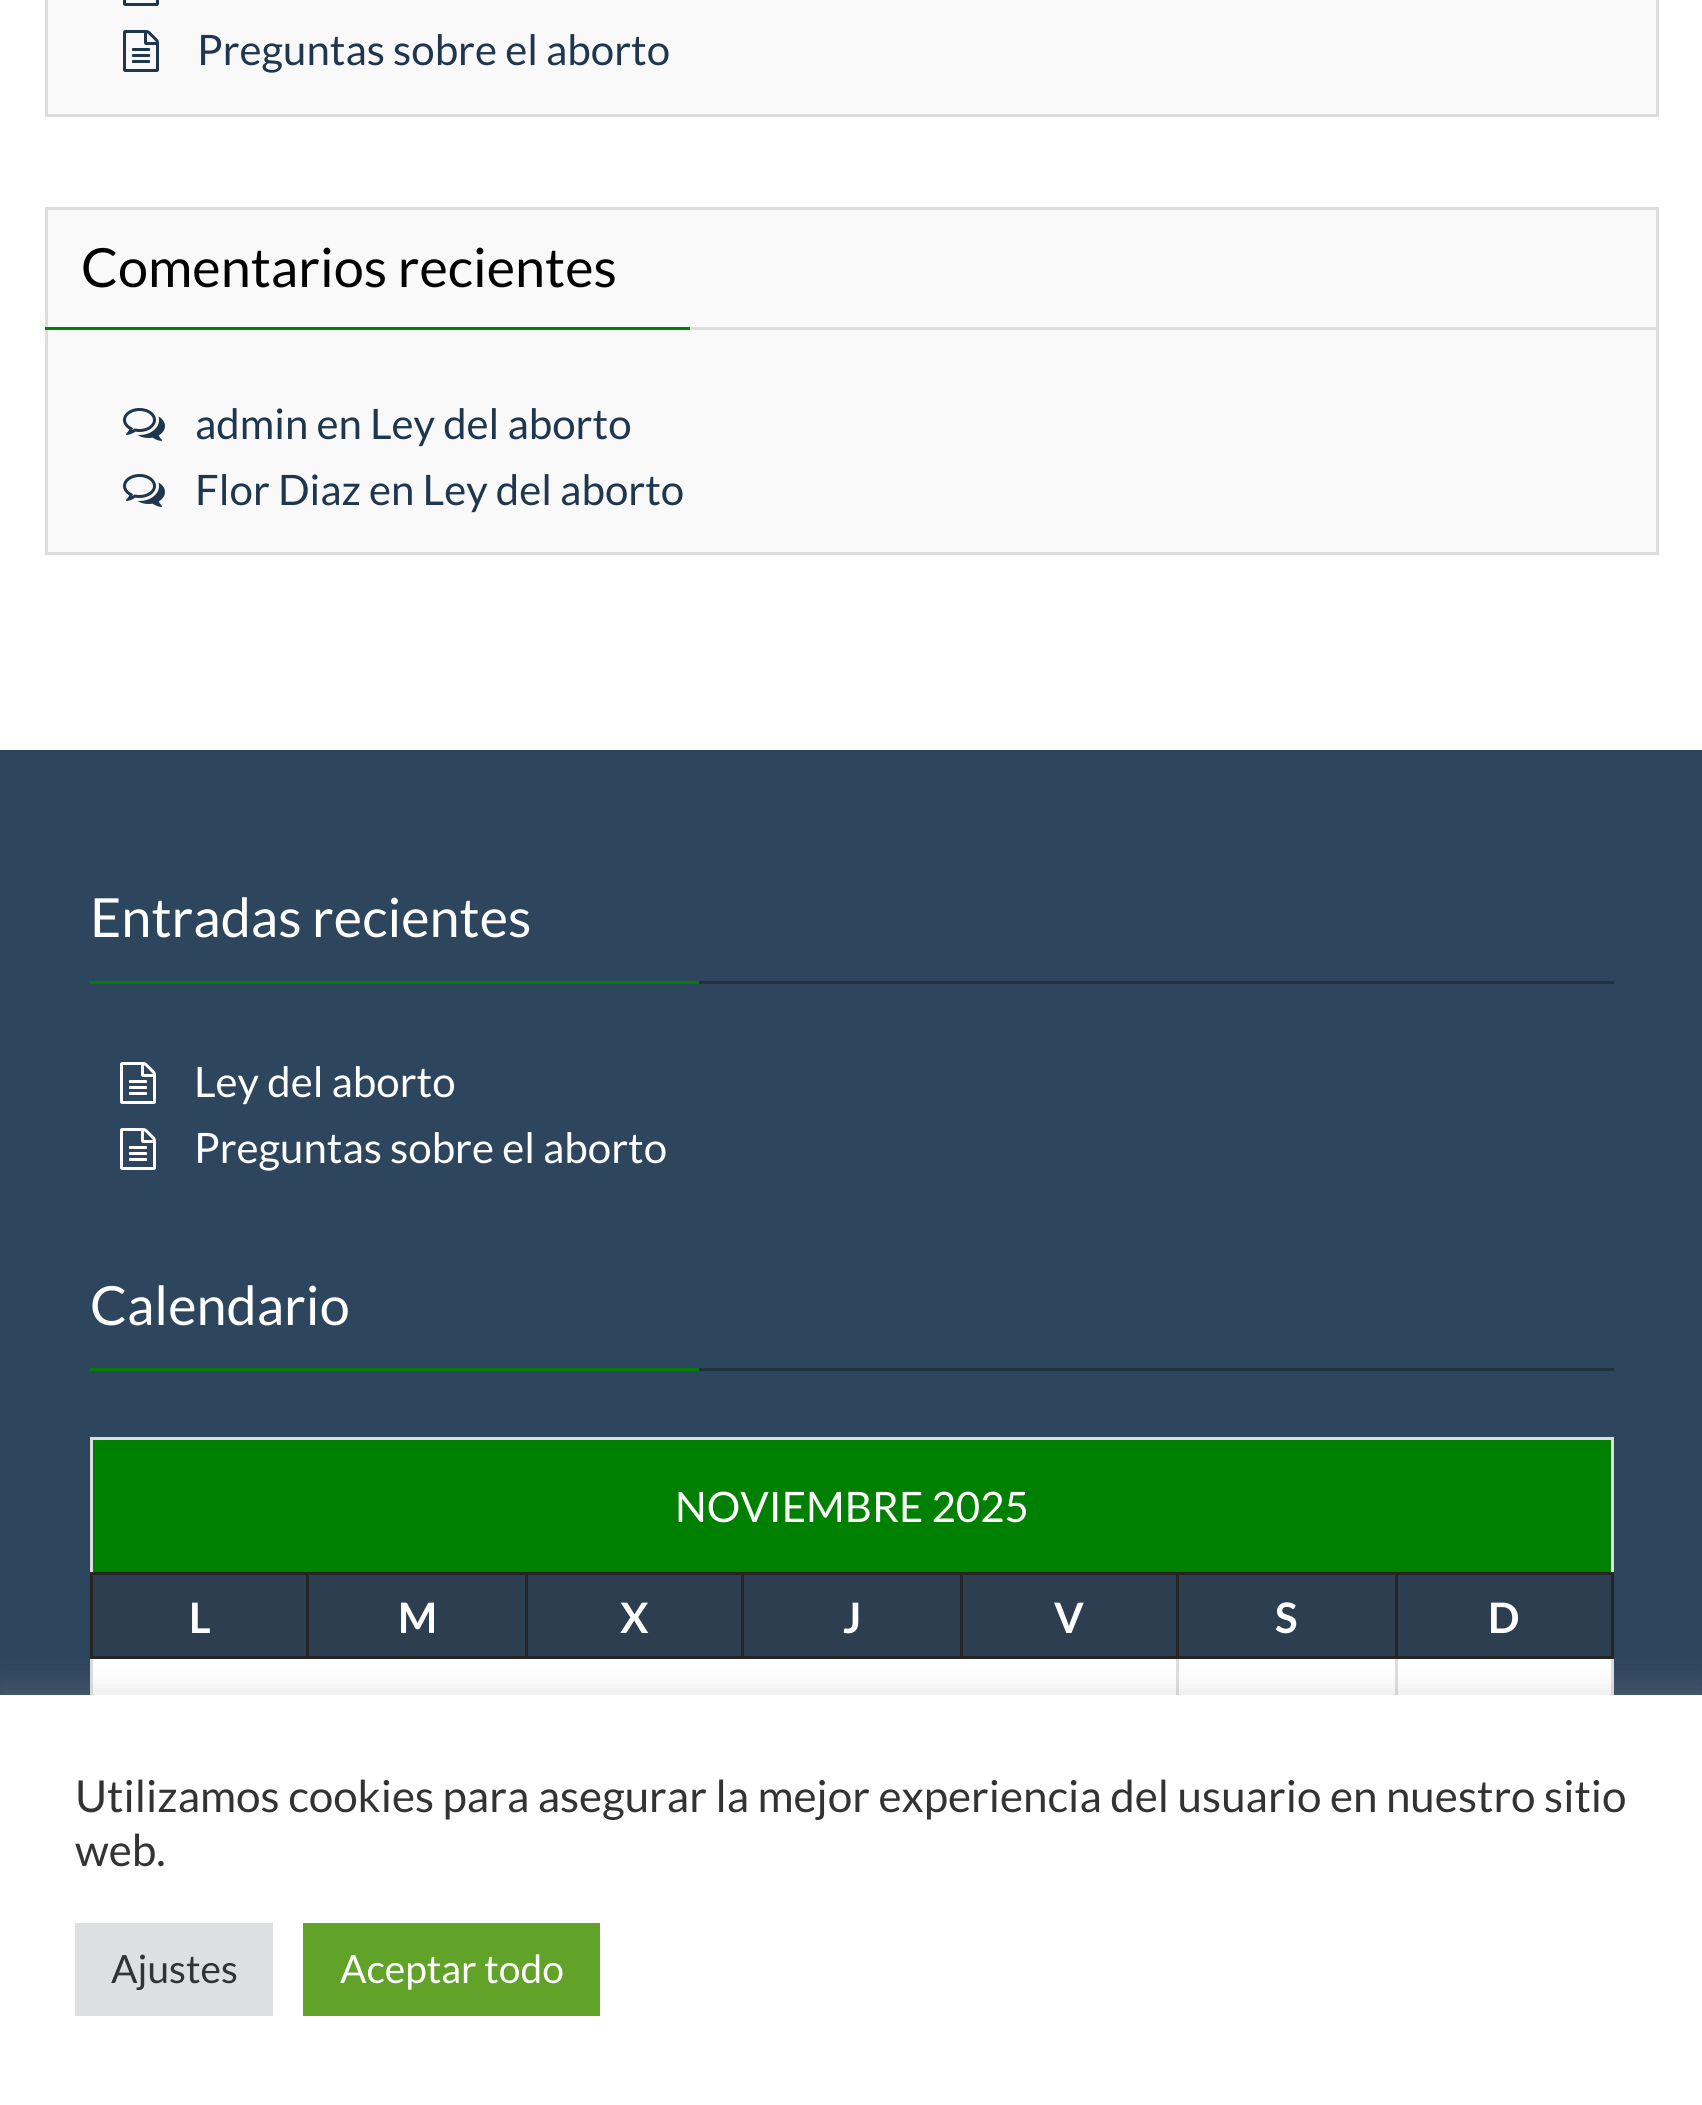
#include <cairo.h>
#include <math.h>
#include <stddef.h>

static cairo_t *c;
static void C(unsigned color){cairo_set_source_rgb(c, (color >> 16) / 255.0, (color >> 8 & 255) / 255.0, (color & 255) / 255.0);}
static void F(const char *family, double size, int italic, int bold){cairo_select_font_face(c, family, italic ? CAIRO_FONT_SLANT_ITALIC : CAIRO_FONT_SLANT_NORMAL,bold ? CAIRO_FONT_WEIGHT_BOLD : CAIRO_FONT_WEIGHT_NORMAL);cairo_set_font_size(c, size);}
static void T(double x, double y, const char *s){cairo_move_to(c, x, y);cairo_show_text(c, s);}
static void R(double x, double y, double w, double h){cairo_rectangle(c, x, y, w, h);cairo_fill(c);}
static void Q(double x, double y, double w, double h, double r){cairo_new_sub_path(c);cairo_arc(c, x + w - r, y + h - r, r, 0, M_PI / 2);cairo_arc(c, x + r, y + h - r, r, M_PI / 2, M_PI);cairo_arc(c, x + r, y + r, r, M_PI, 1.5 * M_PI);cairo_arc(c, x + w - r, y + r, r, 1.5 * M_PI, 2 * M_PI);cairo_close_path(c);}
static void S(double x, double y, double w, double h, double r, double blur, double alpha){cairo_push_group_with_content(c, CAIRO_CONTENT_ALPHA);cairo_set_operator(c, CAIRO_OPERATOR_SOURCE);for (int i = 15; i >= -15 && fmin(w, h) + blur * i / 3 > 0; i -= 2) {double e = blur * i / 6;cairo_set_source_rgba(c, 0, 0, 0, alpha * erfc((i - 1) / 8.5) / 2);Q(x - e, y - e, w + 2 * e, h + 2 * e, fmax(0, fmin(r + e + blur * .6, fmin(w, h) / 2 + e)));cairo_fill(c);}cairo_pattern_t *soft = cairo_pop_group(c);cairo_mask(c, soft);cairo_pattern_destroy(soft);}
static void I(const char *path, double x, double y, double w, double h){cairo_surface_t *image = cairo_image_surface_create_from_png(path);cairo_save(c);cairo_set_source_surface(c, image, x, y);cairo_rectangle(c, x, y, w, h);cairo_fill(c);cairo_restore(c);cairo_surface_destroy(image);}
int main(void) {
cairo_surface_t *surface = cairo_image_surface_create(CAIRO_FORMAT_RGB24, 1702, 2105);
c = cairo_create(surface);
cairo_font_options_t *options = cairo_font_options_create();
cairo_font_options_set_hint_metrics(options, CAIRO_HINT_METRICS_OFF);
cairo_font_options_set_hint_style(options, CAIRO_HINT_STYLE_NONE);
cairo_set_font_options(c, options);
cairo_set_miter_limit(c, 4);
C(0xffffff);
cairo_paint(c);
C(0xf9f9f9);
cairo_rectangle(c,46.5,-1.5,1611,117);
cairo_fill_preserve(c);
C(0xdddddd);
cairo_set_line_width(c,3);
cairo_stroke(c);
I("1.png",123,0,36,6);
I("2.png",123,30,36,42);
F("Lato",42,0,0);
C(0x1e364e);
T(197,65,"Preguntas sobre el aborto");
C(0xf9f9f9);
cairo_rectangle(c,46.5,208.5,1611,345);
cairo_fill_preserve(c);
C(0xdddddd);
cairo_stroke(c);
F("Lato",54,0,0);
C(0x000000);
T(81,287,"Comentarios recientes");
C(0x008000);
R(45,327,645,3);
C(0xdddddd);
R(690,327,969,3);
I("3.png",123,408,42,33);
F("Lato",42,0,0);
C(0x1e364e);
T(195,439,"admin en Ley del aborto");
I("3.png",123,474,42,33);
T(195,505,"Flor Diaz en Ley del aborto");
C(0x2d455d);
R(0,750,1702,945);
F("Lato",54,0,0);
C(0xffffff);
T(90,937,"Entradas recientes");
C(0x008000);
R(90,981,609,3);
C(0x1f3040);
R(699,981,915,3);
I("4.png",120,1062,36,42);
F("Lato",42,0,0);
C(0xffffff);
T(194,1097,"Ley del aborto");
I("4.png",120,1128,36,42);
T(194,1163,"Preguntas sobre el aborto");
F("Lato",54,0,0);
T(90,1325,"Calendario");
C(0x008000);
R(90,1368,609,3);
C(0x1f3040);
R(699,1368,915,3);
C(0xffffff);
R(93,1659,1518,36);
C(0xdddddd);
R(90,1437,1524,3);
R(1611,1437,3,258);
R(90,1437,3,258);
C(0x008000);
R(93,1440,1518,132);
F("Lato",42,0,0);
C(0xffffff);
T(675,1522,"NOVIEMBRE 2025");
C(0x2c3e50);
R(93,1575,213,81);
C(0x252525);
R(1395,1572,219,3);
R(1611,1572,3,87);
C(0xdddddd);
R(1395,1656,3,39);
C(0x252525);
R(1395,1656,219,3);
R(1395,1572,3,87);
R(1176,1572,222,3);
C(0xdddddd);
R(1176,1656,3,39);
C(0x252525);
R(1176,1656,222,3);
R(1176,1572,3,87);
R(960,1572,219,3);
R(960,1656,219,3);
R(960,1572,3,87);
R(741,1572,222,3);
R(741,1656,222,3);
R(741,1572,3,87);
R(525,1572,219,3);
R(525,1656,219,3);
R(525,1572,3,87);
R(306,1572,222,3);
R(306,1656,222,3);
R(306,1572,3,87);
R(90,1572,219,3);
R(90,1656,219,3);
R(90,1572,3,87);
F("Lato",42,0,1);
C(0xffffff);
T(189,1633,"L");
C(0x2c3e50);
R(309,1575,216,81);
C(0xffffff);
T(398,1633,"M");
C(0x2c3e50);
R(528,1575,213,81);
C(0xffffff);
T(620,1633,"X");
C(0x2c3e50);
R(744,1575,216,81);
C(0xffffff);
T(843,1633,"J");
C(0x2c3e50);
R(963,1575,213,81);
C(0xffffff);
T(1054,1633,"V");
C(0x2c3e50);
R(1179,1575,216,81);
C(0xffffff);
T(1275,1633,"S");
C(0x2c3e50);
R(1398,1575,213,81);
C(0xffffff);
T(1488,1633,"D");
C(0xacabab);
S(0,1692,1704,411,0,15,.3);
C(0xffffff);
R(0,1695,1702,410);
F("Lato",44,0,0);
C(0x333333);
T(75,1812,"Utilizamos cookies para asegurar la mejor experiencia del usuario en nuestro sitio");
T(75,1866,"web.");
C(0xdedfe0);
R(75,1923,198,93);
F("Lato",39,0,0);
C(0x333333);
T(111,1983,"Ajustes");
C(0x61a229);
R(303,1923,297,93);
C(0xffffff);
T(340,1983,"Aceptar todo");
cairo_surface_write_to_png(surface, "o.png");
cairo_font_options_destroy(options);
cairo_destroy(c);
cairo_surface_destroy(surface);
return 0;
}
